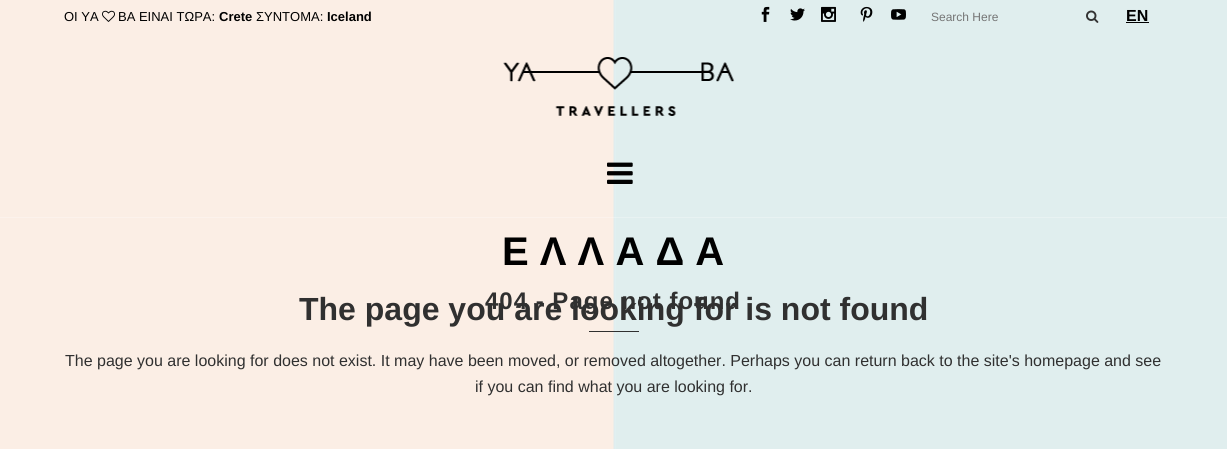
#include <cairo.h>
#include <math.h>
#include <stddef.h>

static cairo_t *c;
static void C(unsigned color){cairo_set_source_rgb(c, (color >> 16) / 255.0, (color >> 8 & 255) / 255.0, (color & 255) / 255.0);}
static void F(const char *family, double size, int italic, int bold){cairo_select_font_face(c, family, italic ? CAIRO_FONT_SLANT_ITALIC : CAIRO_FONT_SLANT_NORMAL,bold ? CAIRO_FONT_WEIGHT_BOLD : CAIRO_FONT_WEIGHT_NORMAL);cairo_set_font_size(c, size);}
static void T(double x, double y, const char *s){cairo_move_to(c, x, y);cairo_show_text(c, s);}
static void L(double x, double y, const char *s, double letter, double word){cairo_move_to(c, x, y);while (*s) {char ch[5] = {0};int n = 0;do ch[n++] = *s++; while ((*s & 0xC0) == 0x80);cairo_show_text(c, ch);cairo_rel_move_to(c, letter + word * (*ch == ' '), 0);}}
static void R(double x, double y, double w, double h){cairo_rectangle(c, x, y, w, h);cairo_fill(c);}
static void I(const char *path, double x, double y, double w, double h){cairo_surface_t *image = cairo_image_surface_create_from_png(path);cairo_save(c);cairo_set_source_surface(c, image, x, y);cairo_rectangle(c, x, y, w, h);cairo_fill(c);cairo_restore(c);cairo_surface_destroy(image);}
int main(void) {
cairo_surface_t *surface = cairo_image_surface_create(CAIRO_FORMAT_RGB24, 1227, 449);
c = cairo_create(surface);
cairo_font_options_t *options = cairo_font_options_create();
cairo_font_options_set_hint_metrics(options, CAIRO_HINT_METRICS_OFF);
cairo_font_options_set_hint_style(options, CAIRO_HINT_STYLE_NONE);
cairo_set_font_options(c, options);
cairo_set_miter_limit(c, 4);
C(0xffffff);
cairo_paint(c);
I("1.png",0,0,1227,449);
F("Liberation Sans",13,0,0);
C(0x000000);
T(64,21,"ΟΙ YA");
I("2.png",102,10,13,12);
T(118,21,"BA ΕΙΝΑΙ ΤΩΡΑ:");
F("Liberation Sans",13,0,1);
T(219,21,"Crete");
F("Liberation Sans",13,0,0);
T(256,21,"ΣΥΝΤΟΜΑ:");
F("Liberation Sans",13,0,1);
T(327,21,"Iceland");
I("3.png",761,6,9,16);
I("4.png",790,8,15,13);
I("5.png",821,6,15,16);
I("6.png",860,6,13,16);
I("7.png",891,9,15,11);
F("Liberation Sans",12,0,0);
C(0x757575);
T(931,21,"Search Here");
I("8.png",1086,10,13,13);
F("Liberation Sans",16,0,1);
C(0x000000);
T(1126,21,"EN");
R(1126,22,23,1);
cairo_set_source_rgba(c,1,1,1,0.25);
R(0,217,1227,1);
I("9.png",503,57,232,59);
I("10.png",607,162,26,22);
F("Liberation Sans",40,0,1);
C(0x000000);
T(502,265,"Ε Λ Λ Α Δ Α");
F("Liberation Sans",32,0,1);
C(0x303030);
T(299,320,"The page you are looking for is not found");
F("Liberation Sans",24,0,1);
L(485,309,"404 - Page not found",1,0);
R(589,331,50,1);
F("Liberation Sans",16,0,0);
T(65,366,"The page you are looking for does not exist. It may have been moved, or removed altogether. Perhaps you can return back to the site's homepage and see");
T(475,392,"if you can find what you are looking for.");
cairo_surface_write_to_png(surface, "o.png");
cairo_font_options_destroy(options);
cairo_destroy(c);
cairo_surface_destroy(surface);
return 0;
}
